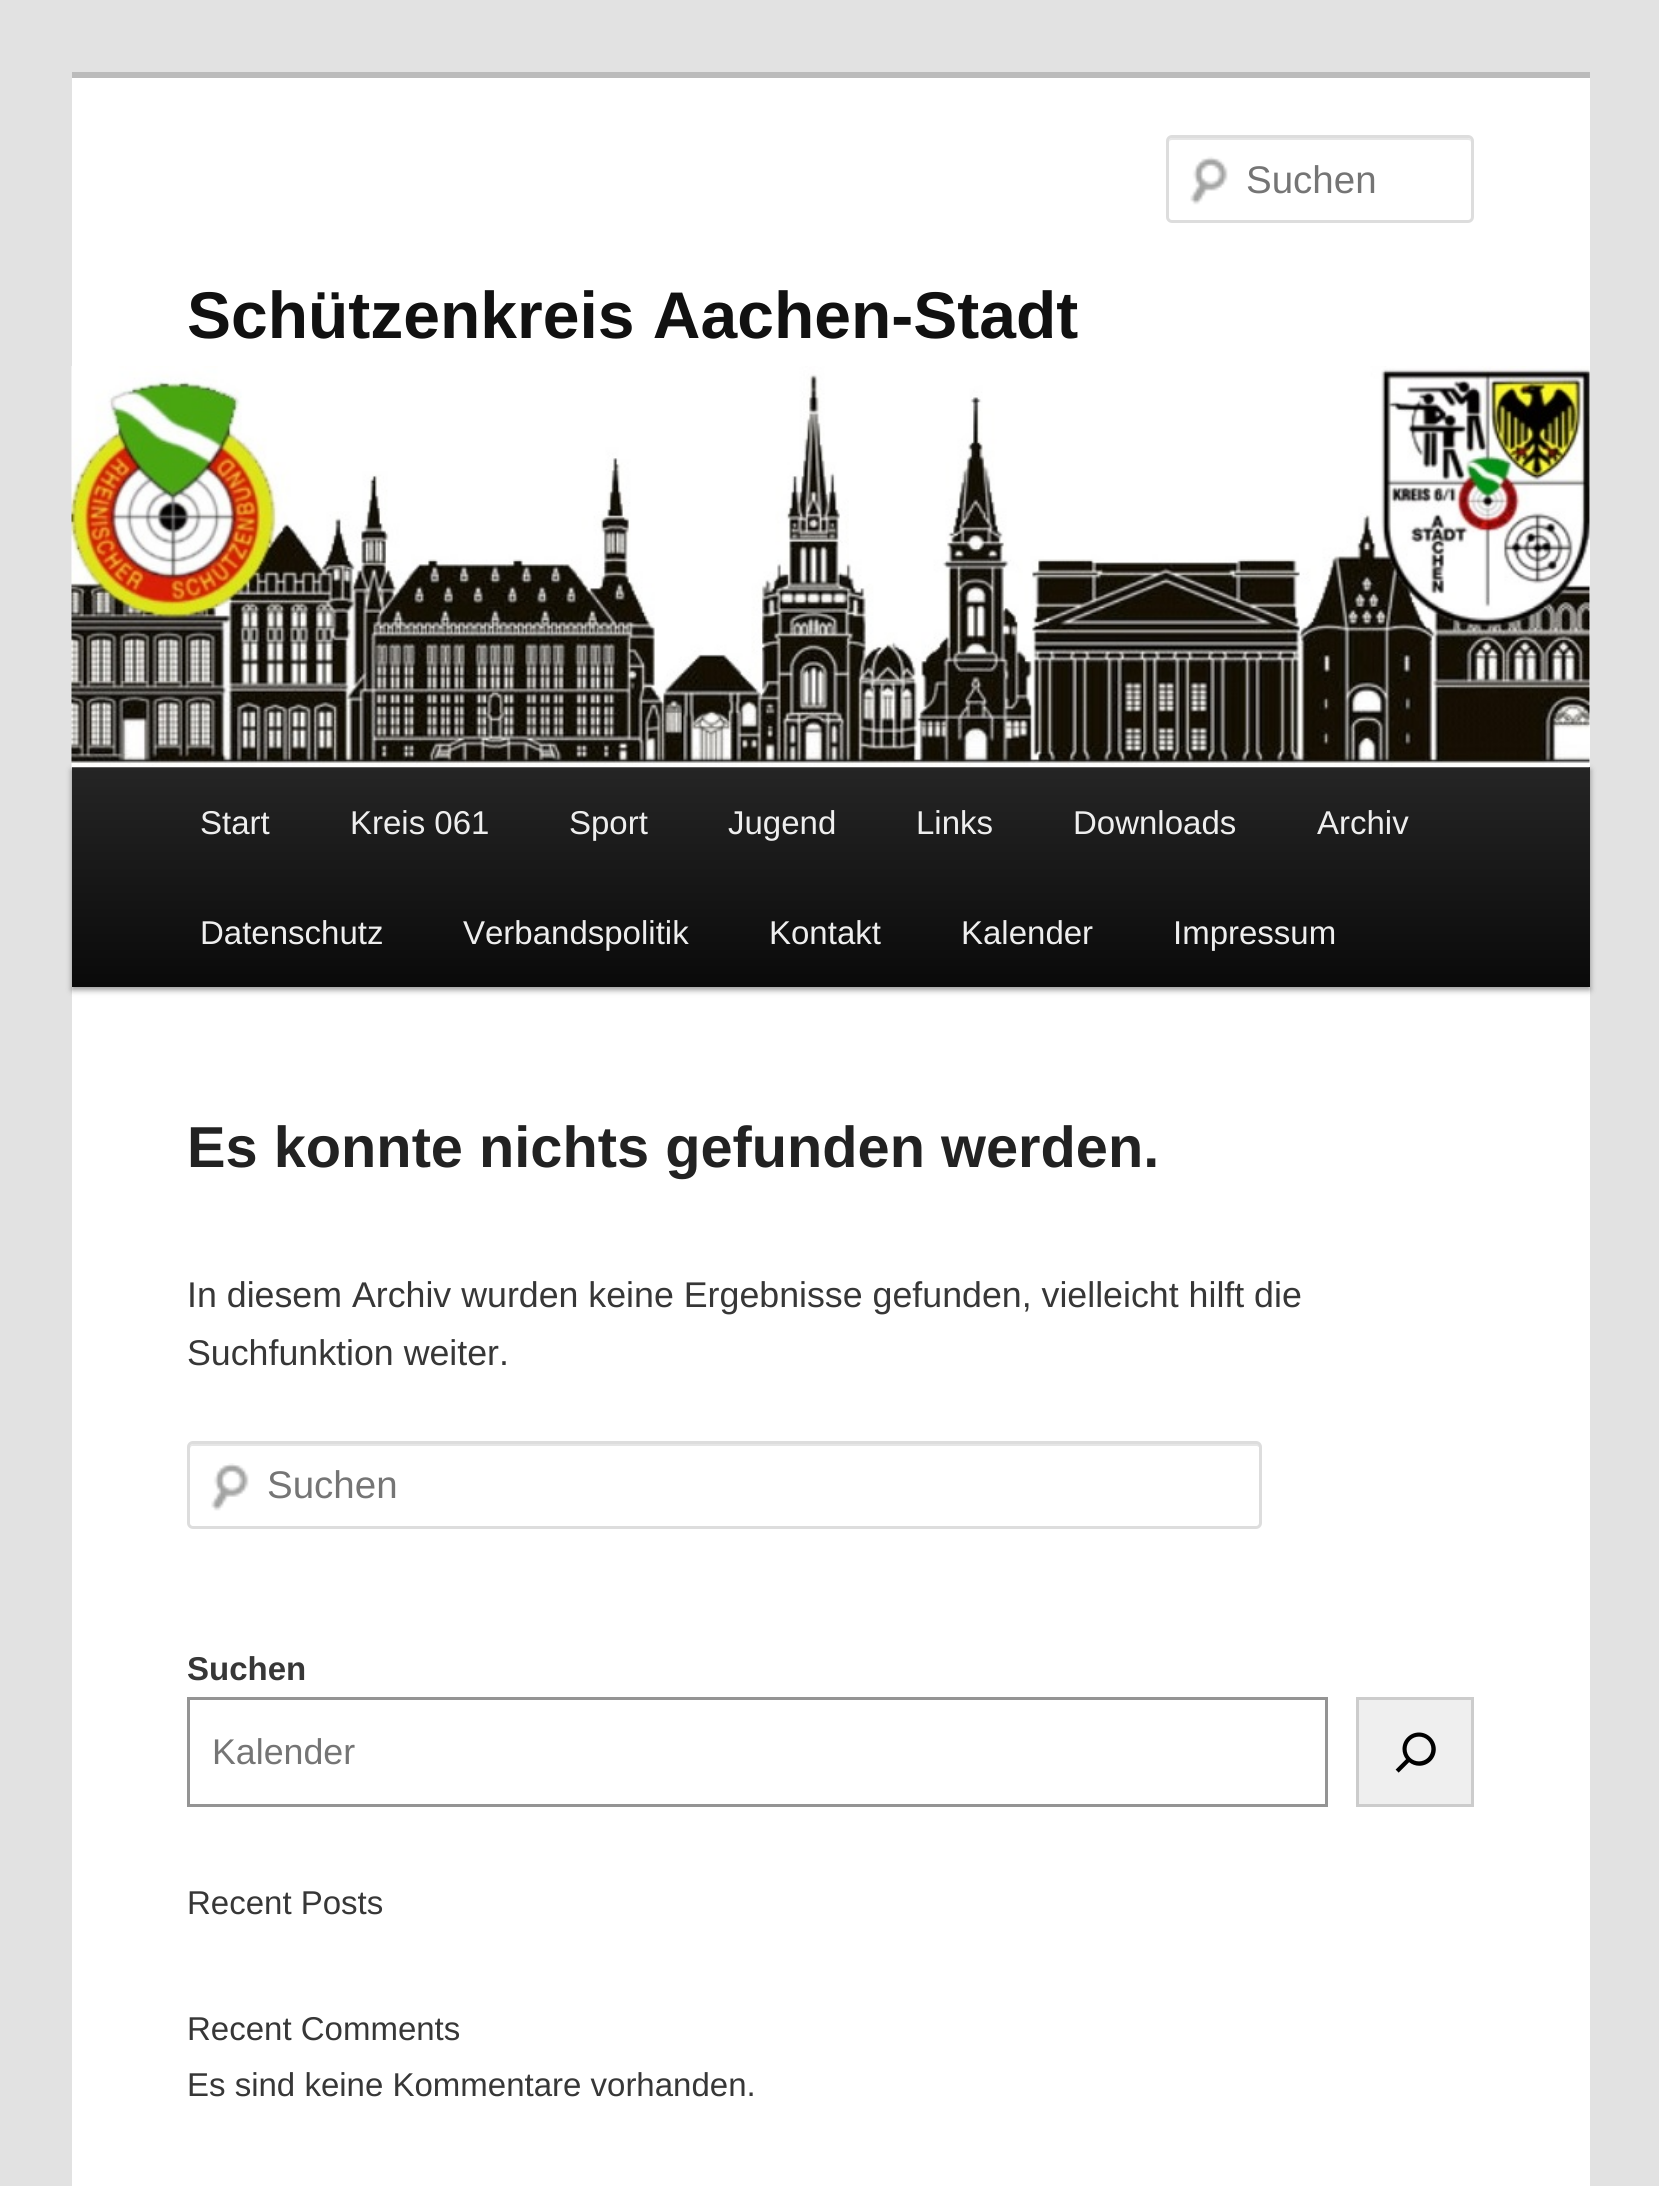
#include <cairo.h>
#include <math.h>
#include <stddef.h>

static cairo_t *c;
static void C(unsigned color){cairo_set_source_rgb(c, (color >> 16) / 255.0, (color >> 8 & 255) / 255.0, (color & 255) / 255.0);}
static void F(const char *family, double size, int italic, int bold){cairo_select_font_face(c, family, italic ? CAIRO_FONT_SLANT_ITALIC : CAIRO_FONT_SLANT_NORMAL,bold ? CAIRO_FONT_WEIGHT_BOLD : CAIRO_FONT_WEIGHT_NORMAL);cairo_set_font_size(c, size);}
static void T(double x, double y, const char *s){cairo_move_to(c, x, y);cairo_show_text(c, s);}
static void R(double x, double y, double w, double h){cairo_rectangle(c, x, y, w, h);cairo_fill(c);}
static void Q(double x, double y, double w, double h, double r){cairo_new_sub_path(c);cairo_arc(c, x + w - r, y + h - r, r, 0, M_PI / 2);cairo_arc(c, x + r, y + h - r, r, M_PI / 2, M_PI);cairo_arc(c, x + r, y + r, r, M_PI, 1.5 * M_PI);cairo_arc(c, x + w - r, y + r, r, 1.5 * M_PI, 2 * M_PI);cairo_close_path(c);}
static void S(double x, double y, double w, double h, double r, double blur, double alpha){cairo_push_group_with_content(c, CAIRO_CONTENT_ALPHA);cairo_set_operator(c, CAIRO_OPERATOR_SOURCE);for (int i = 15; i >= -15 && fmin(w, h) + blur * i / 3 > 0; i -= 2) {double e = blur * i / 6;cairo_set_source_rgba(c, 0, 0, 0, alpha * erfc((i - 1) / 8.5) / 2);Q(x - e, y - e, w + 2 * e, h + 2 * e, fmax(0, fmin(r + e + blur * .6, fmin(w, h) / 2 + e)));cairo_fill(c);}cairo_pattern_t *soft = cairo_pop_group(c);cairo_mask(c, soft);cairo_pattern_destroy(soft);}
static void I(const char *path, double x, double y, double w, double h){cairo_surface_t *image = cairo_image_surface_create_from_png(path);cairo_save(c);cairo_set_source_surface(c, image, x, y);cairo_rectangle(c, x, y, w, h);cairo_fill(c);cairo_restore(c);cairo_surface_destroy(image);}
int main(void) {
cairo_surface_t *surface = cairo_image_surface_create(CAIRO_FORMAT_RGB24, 1659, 2186);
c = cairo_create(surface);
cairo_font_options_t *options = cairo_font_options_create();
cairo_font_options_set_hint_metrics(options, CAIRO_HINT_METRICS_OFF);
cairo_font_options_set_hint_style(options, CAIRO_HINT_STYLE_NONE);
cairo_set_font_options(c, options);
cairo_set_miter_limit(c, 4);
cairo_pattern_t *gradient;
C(0xe2e2e2);
cairo_paint(c);
C(0xffffff);
R(72,78,1518,2108);
C(0xbbbbbb);
R(72,72,1518,6);
I("1.png",1190,156,38,49);
C(0xe6e6e6);
cairo_new_path(c);
cairo_move_to(c,1172,140);
cairo_line_to(c,1468,140);
cairo_curve_to(c,1470,140,1471,141,1471,143);
cairo_curve_to(c,1471,141,1471,138,1468,138);
cairo_line_to(c,1172,138);
cairo_curve_to(c,1169,138,1169,141,1169,143);
cairo_curve_to(c,1169,141,1170,140,1172,140);
cairo_close_path(c);
cairo_fill(c);
Q(1167.5,136.5,305,85,4.5);
C(0xdddddd);
cairo_set_line_width(c,3);
cairo_stroke(c);
F("Liberation Sans",38.5,0,0);
C(0x757575);
T(1246,193,"Suchen");
F("Liberation Sans",66,0,1);
C(0x111111);
T(187,338,"Schützenkreis Aachen-Stadt");
C(0x000000);
S(72,770,1518,220,0,3,.4);
gradient = cairo_pattern_create_linear(831,767,831,987);
cairo_pattern_add_color_stop_rgba(gradient,0,0.145,0.145,0.145,1);
cairo_pattern_add_color_stop_rgba(gradient,1,0.039,0.039,0.039,1);
cairo_set_source(c,gradient);
cairo_pattern_destroy(gradient);
R(72,767,1518,220);
I("2.png",71,366,1519,402);
F("Liberation Sans",33,0,0);
C(0xeeeeee);
T(200,834,"Start");
T(350,834,"Kreis 061");
T(569,834,"Sport");
T(728,834,"Jugend");
T(916,834,"Links");
T(1073,834,"Downloads");
T(1317,834,"Archiv");
T(200,944,"Datenschutz");
T(463,944,"Verbandspolitik");
T(769,944,"Kontakt");
T(961,944,"Kalender");
T(1173,944,"Impressum");
F("Liberation Sans",57.75,0,1);
C(0x222222);
T(187,1167,"Es konnte nichts gefunden werden.");
F("Liberation Sans",35.75,0,0);
C(0x373737);
T(187,1307,"In diesem Archiv wurden keine Ergebnisse gefunden, vielleicht hilft die");
T(187,1365,"Suchfunktion weiter.");
I("3.png",211,1463,38,48);
C(0xe6e6e6);
cairo_new_path(c);
cairo_move_to(c,192,1446);
cairo_line_to(c,1257,1446);
cairo_curve_to(c,1258,1446,1260,1448,1260,1449);
cairo_line_to(c,1260,1447);
cairo_curve_to(c,1260,1445,1259,1444,1257,1444);
cairo_line_to(c,193,1444);
cairo_curve_to(c,191,1444,190,1445,190,1447);
cairo_line_to(c,190,1449);
cairo_curve_to(c,190,1448,191,1446,192,1446);
cairo_close_path(c);
cairo_fill(c);
Q(188.5,1442.5,1072,85,4.5);
C(0xdddddd);
cairo_stroke(c);
F("Liberation Sans",38.5,0,0);
C(0x757575);
T(267,1498,"Suchen");
F("Liberation Sans",33,0,1);
C(0x373737);
T(187,1680,"Suchen");
cairo_rectangle(c,188.5,1698.5,1138,107);
C(0x949494);
cairo_stroke(c);
F("Liberation Sans",35.75,0,0);
C(0x757575);
T(212,1764,"Kalender");
C(0xefefef);
cairo_rectangle(c,1357.5,1698.5,115,107);
cairo_fill_preserve(c);
C(0xcccccc);
cairo_stroke(c);
I("4.png",1395,1732,41,41);
F("Liberation Sans",33,0,0);
C(0x373737);
T(187,1914,"Recent Posts");
T(187,2040,"Recent Comments");
T(187,2096,"Es sind keine Kommentare vorhanden.");
cairo_surface_write_to_png(surface, "o.png");
cairo_font_options_destroy(options);
cairo_destroy(c);
cairo_surface_destroy(surface);
return 0;
}
